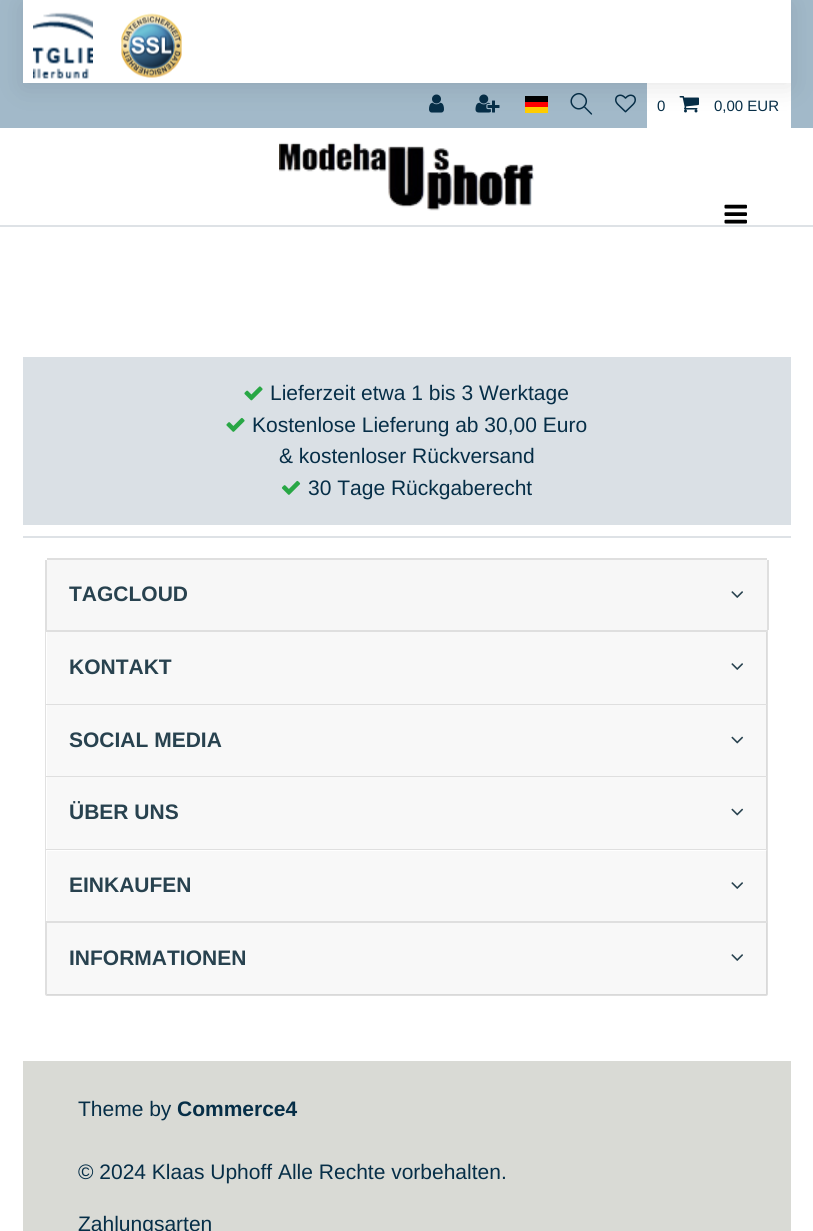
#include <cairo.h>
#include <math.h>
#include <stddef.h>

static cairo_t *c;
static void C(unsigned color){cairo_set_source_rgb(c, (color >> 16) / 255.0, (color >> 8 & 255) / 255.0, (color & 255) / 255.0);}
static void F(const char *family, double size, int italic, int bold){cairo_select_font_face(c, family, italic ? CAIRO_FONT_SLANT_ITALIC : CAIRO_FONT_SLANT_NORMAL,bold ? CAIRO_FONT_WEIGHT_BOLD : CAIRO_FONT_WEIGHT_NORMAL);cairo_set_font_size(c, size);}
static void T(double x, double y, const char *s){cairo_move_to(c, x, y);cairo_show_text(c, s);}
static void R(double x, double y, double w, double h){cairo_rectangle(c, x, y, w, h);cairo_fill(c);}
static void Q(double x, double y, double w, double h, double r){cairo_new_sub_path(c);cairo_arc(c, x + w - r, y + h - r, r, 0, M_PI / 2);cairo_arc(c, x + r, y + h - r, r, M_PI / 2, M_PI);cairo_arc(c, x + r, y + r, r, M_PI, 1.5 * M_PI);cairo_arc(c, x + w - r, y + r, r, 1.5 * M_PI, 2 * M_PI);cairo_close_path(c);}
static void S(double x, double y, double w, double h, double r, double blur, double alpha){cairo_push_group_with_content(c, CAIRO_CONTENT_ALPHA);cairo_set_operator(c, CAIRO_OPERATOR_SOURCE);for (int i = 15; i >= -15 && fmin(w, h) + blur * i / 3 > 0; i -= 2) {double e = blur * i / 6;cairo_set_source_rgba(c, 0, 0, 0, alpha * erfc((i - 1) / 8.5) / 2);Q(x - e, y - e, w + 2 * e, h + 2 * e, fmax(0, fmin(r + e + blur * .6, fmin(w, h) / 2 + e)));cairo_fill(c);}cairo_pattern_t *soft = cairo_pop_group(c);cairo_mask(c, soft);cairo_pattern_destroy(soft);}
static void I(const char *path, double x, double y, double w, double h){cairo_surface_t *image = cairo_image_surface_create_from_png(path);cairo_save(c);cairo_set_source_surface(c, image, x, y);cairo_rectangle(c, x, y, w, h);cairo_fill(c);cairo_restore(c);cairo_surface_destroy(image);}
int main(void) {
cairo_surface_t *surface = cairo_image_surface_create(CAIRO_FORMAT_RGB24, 813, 1231);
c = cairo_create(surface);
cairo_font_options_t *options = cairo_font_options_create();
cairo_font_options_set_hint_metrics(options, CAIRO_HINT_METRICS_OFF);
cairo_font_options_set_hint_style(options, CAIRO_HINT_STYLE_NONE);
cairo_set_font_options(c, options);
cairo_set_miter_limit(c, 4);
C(0xffffff);
cairo_paint(c);
C(0xa2b9c9);
R(0,0,813,128);
I("3.png",429,94,15,19);
I("4.png",475,94,25,19);
C(0xffcc00);
R(525,107,23,6);
C(0x000000);
R(525,96,23,6);
C(0xff0000);
R(525,102,23,5);
C(0x062e47);
cairo_new_path(c);
cairo_move_to(c,591,114.5);
cairo_line_to(c,576,99.5);
cairo_line_to(c,576,99);
cairo_curve_to(c,576,98.5,576.5,98.5,577,98.5);
cairo_line_to(c,592,113.5);
cairo_curve_to(c,592.5,114.5,591.5,115,591,114.5);
cairo_close_path(c);
cairo_fill(c);
C(0xa2b9c9);
cairo_new_path(c);
cairo_move_to(c,573,107);
cairo_curve_to(c,565,99.5,577,88,584.5,95.5);
cairo_curve_to(c,592,103,580.5,115,573,107);
cairo_close_path(c);
cairo_fill(c);
cairo_new_path(c);
cairo_move_to(c,573.5,106.5);
cairo_curve_to(c,566.5,99.5,577,89,584,96);
cairo_curve_to(c,591,103,580.5,113.5,573.5,106.5);
cairo_close_path(c);
C(0x062e47);
cairo_set_line_width(c,1.5);
cairo_stroke(c);
I("5.png",615,94,21,19);
C(0xffffff);
R(647,83,144,45);
I("6.png",679,96,20,17);
C(0x000000);
S(23,5,768,82,0,13,.1);
C(0xffffff);
R(23,0,768,83);
I("1.png",33,12,60,67);
I("2.png",121,13,61,65);
F("Liberation Sans",15,0,0);
C(0x062e47);
T(657,111,"0");
T(714,111,"0,00 EUR");
C(0xdee2e6);
R(0,225,813,2);
I("7.png",279,142,255,69);
I("8.png",724,204,23,20);
C(0xdae0e5);
R(23,357,768,168);
I("9.png",244,386,19,15);
F("Liberation Sans",21,0,0);
C(0x062e47);
T(270,400,"Lieferzeit etwa 1 bis 3 Werktage");
I("10.png",226,417,19,15);
T(252,432,"Kostenlose Lieferung ab 30,00 Euro");
T(279,463,"& kostenloser Rückversand");
I("11.png",281,480,20,15);
T(308,495,"30 Tage Rückgaberecht");
C(0xdee2e6);
R(23,536,768,2);
C(0xdfdfdf);
R(47,558,720,2);
R(767,560,2,70);
R(45,560,2,70);
C(0xf7f7f7);
cairo_new_path(c);
cairo_move_to(c,48,560);
cairo_line_to(c,766,560);
cairo_curve_to(c,766.5,560,767,560.5,767,561);
cairo_line_to(c,767,630);
cairo_line_to(c,47,630);
cairo_line_to(c,47,561);
cairo_curve_to(c,47,560.5,47.5,560,48,560);
cairo_close_path(c);
cairo_fill(c);
F("Liberation Sans",21,0,1);
C(0x28424f);
T(69,601,"TAGCLOUD");
I("12.png",731,591,12,7);
C(0xdfdfdf);
cairo_new_path(c);
cairo_move_to(c,45,630);
cairo_line_to(c,768,630);
cairo_line_to(c,766,632);
cairo_line_to(c,46,632);
cairo_close_path(c);
cairo_fill(c);
cairo_set_source_rgba(c,0,0,0,0.12);
cairo_new_path(c);
cairo_move_to(c,768,630);
cairo_line_to(c,768,704);
cairo_line_to(c,766,704);
cairo_line_to(c,766,632);
cairo_close_path(c);
cairo_fill(c);
cairo_new_path(c);
cairo_move_to(c,45,704);
cairo_line_to(c,45,630);
cairo_line_to(c,46,632);
cairo_line_to(c,46,704);
cairo_close_path(c);
cairo_fill(c);
cairo_set_source_rgba(c,0,0,0,0.03);
R(47,632,720,72);
C(0x28424f);
T(69,674,"KONTAKT");
I("13.png",731,663,12,7);
C(0xdfdfdf);
cairo_new_path(c);
cairo_move_to(c,45,704);
cairo_line_to(c,768,704);
cairo_line_to(c,766,705);
cairo_line_to(c,46,705);
cairo_close_path(c);
cairo_fill(c);
cairo_set_source_rgba(c,0,0,0,0.12);
cairo_new_path(c);
cairo_move_to(c,768,704);
cairo_line_to(c,768,776);
cairo_line_to(c,766,776);
cairo_line_to(c,766,705);
cairo_close_path(c);
cairo_fill(c);
cairo_new_path(c);
cairo_move_to(c,45,776);
cairo_line_to(c,45,704);
cairo_line_to(c,46,705);
cairo_line_to(c,46,776);
cairo_close_path(c);
cairo_fill(c);
cairo_set_source_rgba(c,0,0,0,0.03);
R(47,705,720,71);
C(0x28424f);
T(69,747,"SOCIAL MEDIA");
I("14.png",731,736,13,8);
C(0xdfdfdf);
cairo_new_path(c);
cairo_move_to(c,45,776);
cairo_line_to(c,768,776);
cairo_line_to(c,766,777);
cairo_line_to(c,46,777);
cairo_close_path(c);
cairo_fill(c);
cairo_set_source_rgba(c,0,0,0,0.12);
cairo_new_path(c);
cairo_move_to(c,768,776);
cairo_line_to(c,768,849);
cairo_line_to(c,766,849);
cairo_line_to(c,766,777);
cairo_close_path(c);
cairo_fill(c);
cairo_new_path(c);
cairo_move_to(c,45,849);
cairo_line_to(c,45,776);
cairo_line_to(c,46,777);
cairo_line_to(c,46,849);
cairo_close_path(c);
cairo_fill(c);
cairo_set_source_rgba(c,0,0,0,0.03);
R(47,777,720,72);
C(0x28424f);
T(69,819,"ÜBER UNS");
I("14.png",731,808,13,8);
C(0xdfdfdf);
cairo_new_path(c);
cairo_move_to(c,45,849);
cairo_line_to(c,768,849);
cairo_line_to(c,766,850);
cairo_line_to(c,46,850);
cairo_close_path(c);
cairo_fill(c);
cairo_set_source_rgba(c,0,0,0,0.12);
cairo_new_path(c);
cairo_move_to(c,768,849);
cairo_line_to(c,768,921);
cairo_line_to(c,766,921);
cairo_line_to(c,766,850);
cairo_close_path(c);
cairo_fill(c);
cairo_new_path(c);
cairo_move_to(c,45,921);
cairo_line_to(c,45,849);
cairo_line_to(c,46,850);
cairo_line_to(c,46,921);
cairo_close_path(c);
cairo_fill(c);
cairo_set_source_rgba(c,0,0,0,0.03);
R(47,851,720,70);
C(0x28424f);
T(69,892,"EINKAUFEN");
I("13.png",731,882,12,7);
cairo_new_path(c);
cairo_move_to(c,46,922);
cairo_line_to(c,767,922);
cairo_line_to(c,767,994);
cairo_curve_to(c,767,994.5,766.5,995,766,995);
cairo_line_to(c,47,995);
cairo_curve_to(c,46.5,995,46,994.5,46,994);
cairo_close_path(c);
C(0xdfdfdf);
cairo_set_line_width(c,2);
cairo_stroke(c);
cairo_set_source_rgba(c,0,0,0,0.03);
R(47,923,720,72);
C(0x28424f);
T(69,965,"INFORMATIONEN");
I("15.png",731,954,12,7);
C(0xd9dad5);
R(23,1061,768,170);
F("Liberation Sans",21,0,0);
C(0x062e47);
T(78,1116,"Theme by");
F("Liberation Sans",21,0,1);
T(177,1116,"Commerce4");
F("Liberation Sans",21,0,0);
T(78,1179,"© 2024 Klaas Uphoff Alle Rechte vorbehalten.");
T(78,1231,"Zahlungsarten");
cairo_surface_write_to_png(surface, "o.png");
cairo_font_options_destroy(options);
cairo_destroy(c);
cairo_surface_destroy(surface);
return 0;
}
